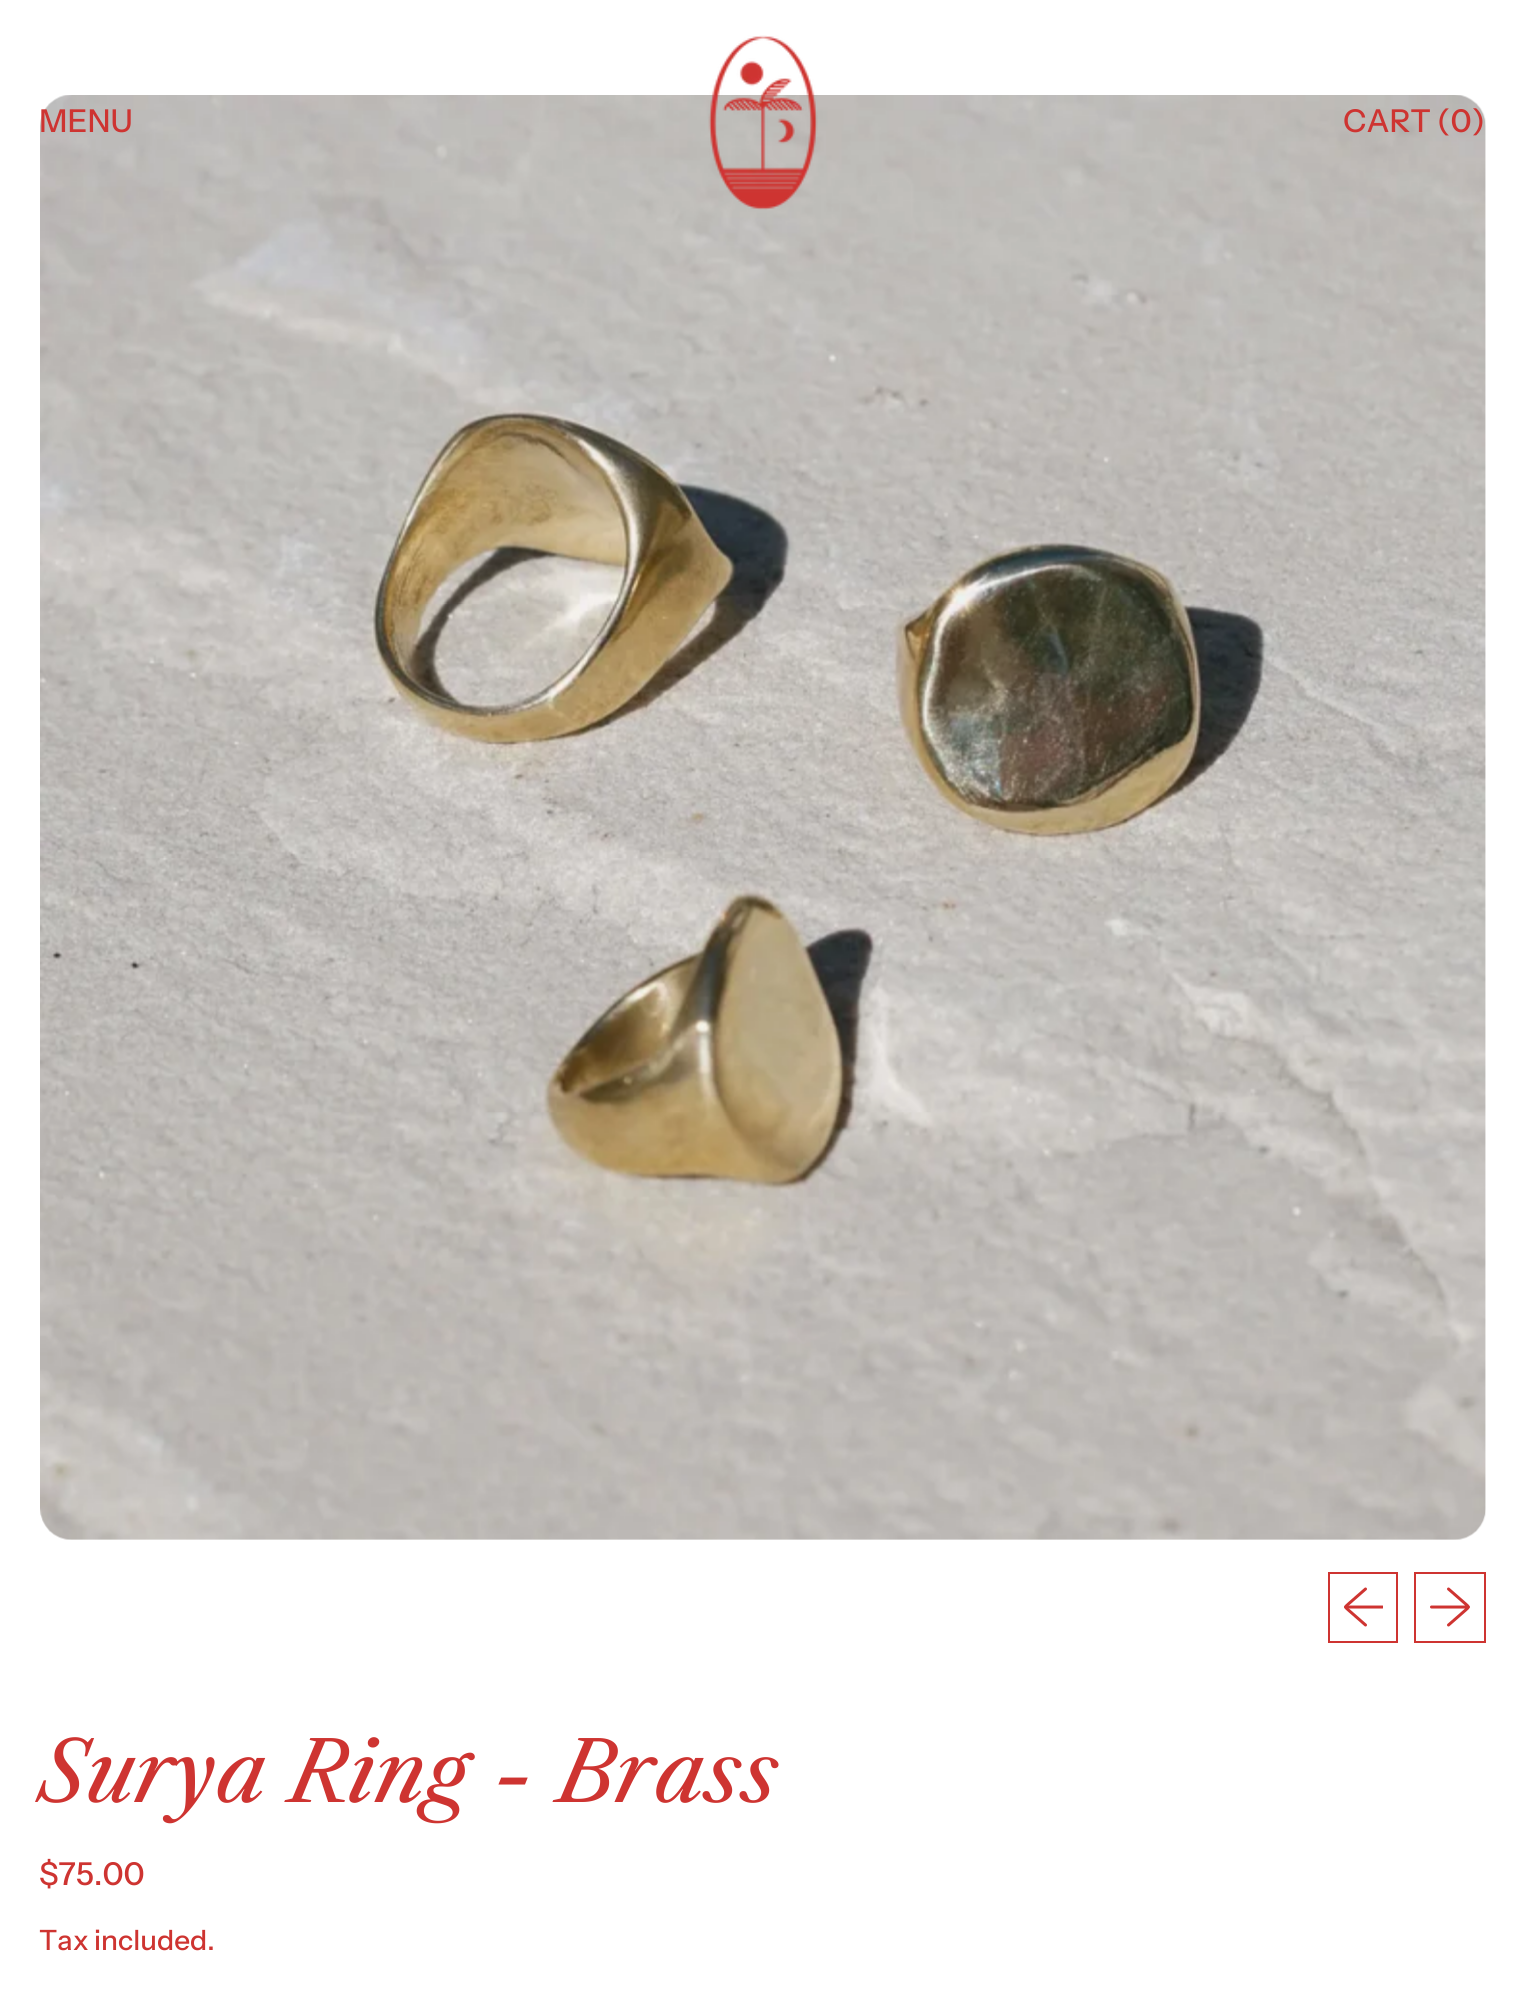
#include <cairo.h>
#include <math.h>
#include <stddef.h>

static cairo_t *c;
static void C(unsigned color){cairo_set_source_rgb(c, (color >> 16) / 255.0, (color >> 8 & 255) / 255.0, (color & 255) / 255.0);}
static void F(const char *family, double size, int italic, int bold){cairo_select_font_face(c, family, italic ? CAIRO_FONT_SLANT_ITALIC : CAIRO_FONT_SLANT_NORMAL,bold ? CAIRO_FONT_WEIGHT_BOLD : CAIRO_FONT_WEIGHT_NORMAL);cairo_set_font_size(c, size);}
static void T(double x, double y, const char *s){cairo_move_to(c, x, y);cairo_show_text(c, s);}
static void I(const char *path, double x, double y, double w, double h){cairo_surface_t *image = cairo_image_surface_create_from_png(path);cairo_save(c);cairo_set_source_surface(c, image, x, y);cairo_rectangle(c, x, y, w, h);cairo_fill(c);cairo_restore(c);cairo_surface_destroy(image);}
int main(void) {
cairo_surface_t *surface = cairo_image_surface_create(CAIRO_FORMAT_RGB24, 1523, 1997);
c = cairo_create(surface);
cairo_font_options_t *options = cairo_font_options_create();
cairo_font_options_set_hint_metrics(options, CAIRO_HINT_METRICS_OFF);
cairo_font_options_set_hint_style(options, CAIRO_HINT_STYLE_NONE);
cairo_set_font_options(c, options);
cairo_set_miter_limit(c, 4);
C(0xffffff);
cairo_paint(c);
I("2.png",40,95,1446,1445);
F("Instrument Sans Medium",31.5,0,0);
C(0xce3431);
T(39,132,"MENU");
I("1.png",708,35,110,175);
T(1343,132,"CART (0)");
cairo_rectangle(c,1329,1573,68,69);
cairo_stroke(c);
cairo_save(c);
cairo_rectangle(c,1344,1587,39,41);
cairo_clip(c);
cairo_new_path(c);
cairo_move_to(c,1345.5,1607);
cairo_line_to(c,1382.5,1607);
cairo_set_line_width(c,3);
cairo_set_line_cap(c,CAIRO_LINE_CAP_ROUND);
cairo_set_line_join(c,CAIRO_LINE_JOIN_ROUND);
cairo_stroke(c);
cairo_restore(c);
cairo_new_path(c);
cairo_move_to(c,1365.5,1625);
cairo_line_to(c,1349.5,1611);
cairo_curve_to(c,1344.5,1606.5,1344.5,1607.5,1349.5,1603);
cairo_line_to(c,1365.5,1589);
cairo_set_line_width(c,3);
cairo_set_line_cap(c,CAIRO_LINE_CAP_ROUND);
cairo_set_line_join(c,CAIRO_LINE_JOIN_ROUND);
cairo_stroke(c);
cairo_rectangle(c,1415,1573,70,69);
cairo_set_line_width(c,2);
cairo_set_line_cap(c,CAIRO_LINE_CAP_BUTT);
cairo_set_line_join(c,CAIRO_LINE_JOIN_MITER);
cairo_stroke(c);
cairo_new_path(c);
cairo_move_to(c,1468.5,1607);
cairo_line_to(c,1431.5,1607);
cairo_move_to(c,1448.5,1625);
cairo_line_to(c,1464.5,1611);
cairo_curve_to(c,1469.5,1606.5,1469.5,1607.5,1464.5,1603);
cairo_line_to(c,1448.5,1589);
cairo_set_line_width(c,3);
cairo_set_line_cap(c,CAIRO_LINE_CAP_ROUND);
cairo_set_line_join(c,CAIRO_LINE_JOIN_ROUND);
cairo_stroke(c);
F("Libre Caslon Text",84,1,0);
T(39,1802,"Surya Ring - Brass");
F("Instrument Sans Medium",31.5,0,0);
T(39,1885,"$75.00");
F("Instrument Sans Medium",28,0,0);
T(39,1950,"Tax included.");
cairo_surface_write_to_png(surface, "o.png");
cairo_font_options_destroy(options);
cairo_destroy(c);
cairo_surface_destroy(surface);
return 0;
}
